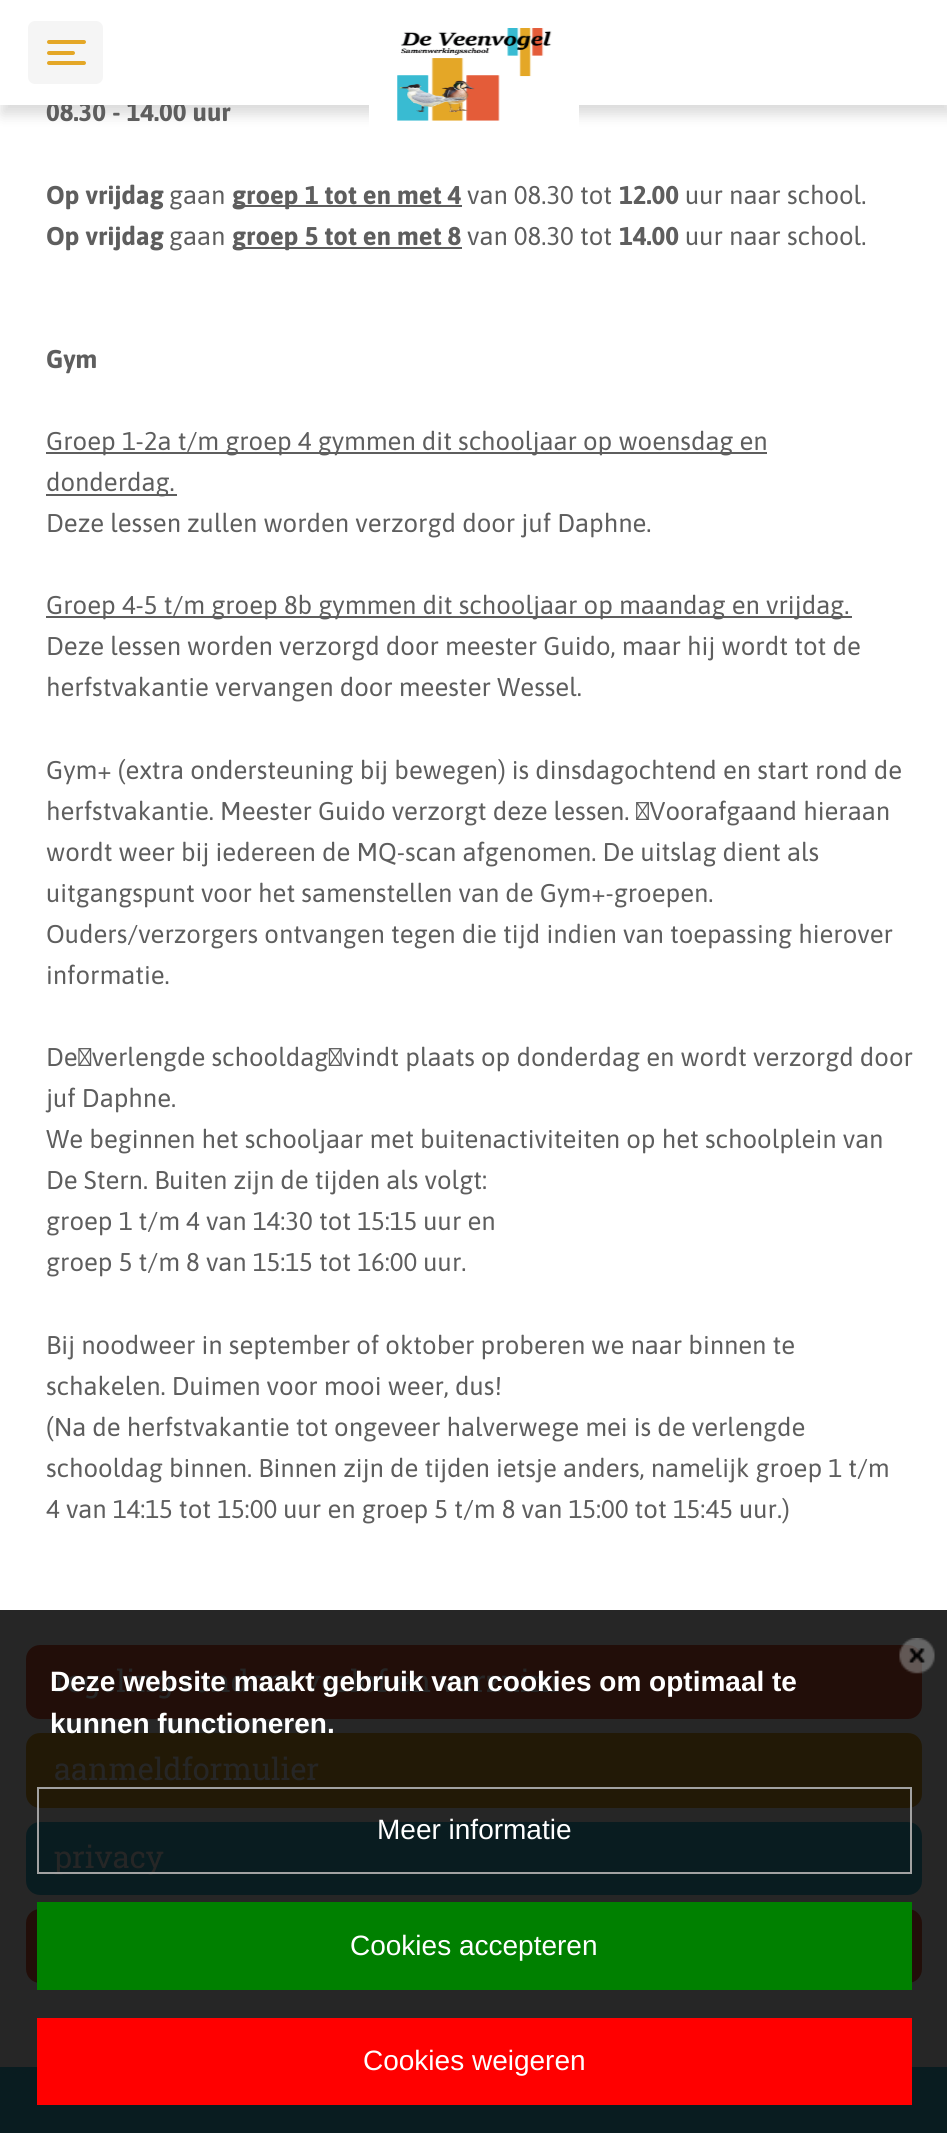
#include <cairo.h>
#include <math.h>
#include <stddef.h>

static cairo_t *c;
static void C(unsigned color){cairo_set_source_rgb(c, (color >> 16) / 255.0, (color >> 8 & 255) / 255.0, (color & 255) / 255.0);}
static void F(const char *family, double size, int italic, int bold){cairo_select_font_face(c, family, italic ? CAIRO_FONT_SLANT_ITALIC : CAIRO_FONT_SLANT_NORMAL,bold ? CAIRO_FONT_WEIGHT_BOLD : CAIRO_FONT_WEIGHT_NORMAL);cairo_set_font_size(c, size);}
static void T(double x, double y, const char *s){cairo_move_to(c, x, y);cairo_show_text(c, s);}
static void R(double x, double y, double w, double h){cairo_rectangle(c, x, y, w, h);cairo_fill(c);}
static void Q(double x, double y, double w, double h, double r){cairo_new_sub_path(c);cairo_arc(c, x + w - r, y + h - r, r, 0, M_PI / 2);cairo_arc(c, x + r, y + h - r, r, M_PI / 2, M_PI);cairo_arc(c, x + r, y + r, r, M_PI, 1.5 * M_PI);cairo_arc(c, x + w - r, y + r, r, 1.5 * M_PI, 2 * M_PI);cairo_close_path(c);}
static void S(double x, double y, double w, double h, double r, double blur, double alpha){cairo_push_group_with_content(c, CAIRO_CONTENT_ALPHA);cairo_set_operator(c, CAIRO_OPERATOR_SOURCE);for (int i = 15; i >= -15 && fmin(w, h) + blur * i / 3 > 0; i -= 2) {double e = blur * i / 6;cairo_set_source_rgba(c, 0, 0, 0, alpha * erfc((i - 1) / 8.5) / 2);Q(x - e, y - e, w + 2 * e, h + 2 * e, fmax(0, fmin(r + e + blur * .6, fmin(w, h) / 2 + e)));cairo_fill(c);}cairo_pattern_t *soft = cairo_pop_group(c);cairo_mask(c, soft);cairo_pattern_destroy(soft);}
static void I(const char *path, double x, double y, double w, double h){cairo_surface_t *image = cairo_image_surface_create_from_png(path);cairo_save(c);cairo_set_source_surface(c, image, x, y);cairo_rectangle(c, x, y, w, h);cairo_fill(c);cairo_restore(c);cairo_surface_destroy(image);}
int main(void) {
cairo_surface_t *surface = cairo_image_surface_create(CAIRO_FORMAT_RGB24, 947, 2133);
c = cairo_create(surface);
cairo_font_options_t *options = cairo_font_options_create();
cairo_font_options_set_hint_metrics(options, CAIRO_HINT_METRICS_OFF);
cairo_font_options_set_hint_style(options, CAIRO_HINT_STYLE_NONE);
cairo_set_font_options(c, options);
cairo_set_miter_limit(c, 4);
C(0xffffff);
cairo_paint(c);
C(0x262626);
R(0,1610,947,457);
C(0x000000);
S(2,9,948,105,0,7,.15);
F("Asap",25.65,0,1);
C(0x5e5e5e);
T(46,121,"08.30 - 14.00 uur");
C(0xffffff);
R(0,0,947,105);
C(0xf5f5f5);
Q(28,21,75,63,7);
cairo_fill(c);
C(0xe4a727);
Q(47,40,39,4,2);
cairo_fill(c);
Q(47,51,28,4,2);
cairo_fill(c);
Q(47,61,39,4,2);
cairo_fill(c);
C(0xffffff);
cairo_new_path(c);
cairo_move_to(c,369,0);
cairo_line_to(c,579,0);
cairo_line_to(c,579,142);
cairo_curve_to(c,579,146,576,149,572,149);
cairo_line_to(c,376,149);
cairo_curve_to(c,372,149,369,146,369,142);
cairo_close_path(c);
cairo_fill(c);
I("1.png",397,28,155,93);
C(0x5e5e5e);
T(46,204,"Op vrijdag");
F("Asap",25.65,0,0);
T(169,204,"gaan");
R(233,205,229,2);
F("Asap",25.65,0,1);
T(232,204,"groep 1 tot en met 4");
F("Asap",25.65,0,0);
T(467,204,"van 08.30 tot");
F("Asap",25.65,0,1);
T(619,204,"12.00");
F("Asap",25.65,0,0);
T(685,204,"uur naar school.");
F("Asap",25.65,0,1);
T(46,245,"Op vrijdag");
F("Asap",25.65,0,0);
T(169,245,"gaan");
R(233,247,229,2);
F("Asap",25.65,0,1);
T(232,245,"groep 5 tot en met 8");
F("Asap",25.65,0,0);
T(467,245,"van 08.30 tot");
F("Asap",25.65,0,1);
T(619,245,"14.00");
F("Asap",25.65,0,0);
T(685,245,"uur naar school.");
F("Asap",25.65,0,1);
T(46,368,"Gym");
R(46,452,721,2);
F("Asap",25.65,0,0);
T(46,450,"Groep 1-2a t/m groep 4 gymmen dit schooljaar op woensdag en");
R(46,494,131,2);
T(46,491,"donderdag.");
T(46,532,"Deze lessen zullen worden verzorgd door juf Daphne.");
R(46,616,806,2);
T(46,614,"Groep 4-5 t/m groep 8b gymmen dit schooljaar op maandag en vrijdag.");
T(46,655,"Deze lessen worden verzorgd door meester Guido, maar hij wordt tot de");
T(46,696,"herfstvakantie vervangen door meester Wessel.");
T(46,779,"Gym+ (extra ondersteuning bij bewegen) is dinsdagochtend en start rond de");
T(46,820,"herfstvakantie. Meester Guido verzorgt deze lessen.  Voorafgaand hieraan");
T(46,861,"wordt weer bij iedereen de MQ-scan afgenomen. De uitslag dient als");
T(46,902,"uitgangspunt voor het samenstellen van de Gym+-groepen.");
T(46,943,"Ouders/verzorgers ontvangen tegen die tijd indien van toepassing hierover");
T(46,984,"informatie.");
T(46,1066,"De verlengde schooldag vindt plaats op donderdag en wordt verzorgd door");
T(46,1107,"juf Daphne.");
T(46,1148,"We beginnen het schooljaar met buitenactiviteiten op het schoolplein van");
T(46,1189,"De Stern. Buiten zijn de tijden als volgt:");
T(46,1230,"groep 1 t/m 4 van 14:30 tot 15:15 uur en");
T(46,1271,"groep 5 t/m 8 van 15:15 tot 16:00 uur.");
T(46,1354,"Bij noodweer in september of oktober proberen we naar binnen te");
T(46,1395,"schakelen. Duimen voor mooi weer, dus!");
T(46,1436,"(Na de herfstvakantie tot ongeveer halverwege mei is de verlengde");
T(46,1477,"schooldag binnen. Binnen zijn de tijden ietsje anders, namelijk groep 1 t/m");
T(46,1518,"4 van 14:15 tot 15:00 uur en groep 5 t/m 8 van 15:00 tot 15:45 uur.)");
C(0x220e09);
Q(26,1645,896,74,14);
cairo_fill(c);
F("Roboto Slab",30.75,0,0);
C(0x262626);
T(54,1692,"regeling rondom verlof en verzuim");
C(0x221906);
Q(26,1733,896,75,14);
cairo_fill(c);
C(0x262626);
T(54,1780,"aanmeldformulier");
C(0x091c20);
Q(26,1822,896,73,14);
cairo_fill(c);
C(0x262626);
T(54,1868,"privacy");
C(0x220e09);
Q(26,1909,896,74,14);
cairo_fill(c);
I("2.png",899,1638,36,36);
F("Liberation Sans",28,0,1);
C(0xffffff);
T(50,1691,"Deze website maakt gebruik van cookies om optimaal te");
T(50,1733,"kunnen functioneren.");
cairo_rectangle(c,38,1788,873,85);
C(0xa2a2a2);
cairo_stroke(c);
F("Liberation Sans",28,0,0);
C(0xffffff);
T(377,1839,"Meer informatie");
C(0x008000);
R(37,1902,875,88);
C(0xffffff);
T(350,1955,"Cookies accepteren");
C(0x091c20);
R(0,2067,947,66);
C(0xff0000);
R(37,2018,875,87);
C(0xffffff);
T(363,2070,"Cookies weigeren");
cairo_surface_write_to_png(surface, "o.png");
cairo_font_options_destroy(options);
cairo_destroy(c);
cairo_surface_destroy(surface);
return 0;
}
